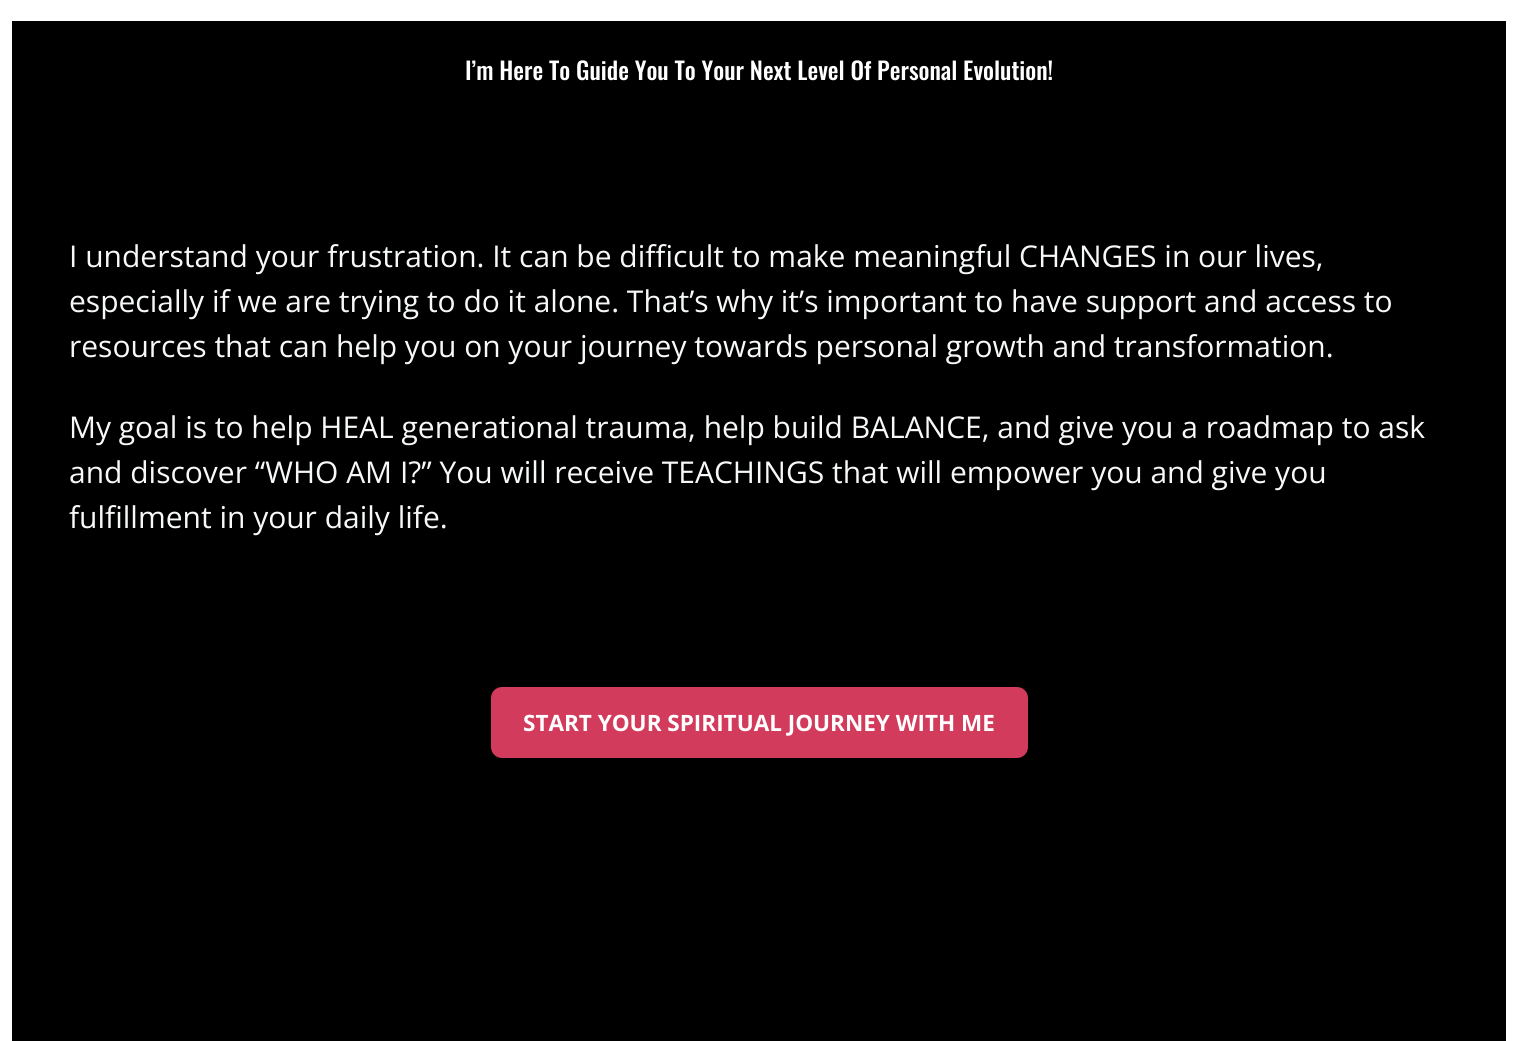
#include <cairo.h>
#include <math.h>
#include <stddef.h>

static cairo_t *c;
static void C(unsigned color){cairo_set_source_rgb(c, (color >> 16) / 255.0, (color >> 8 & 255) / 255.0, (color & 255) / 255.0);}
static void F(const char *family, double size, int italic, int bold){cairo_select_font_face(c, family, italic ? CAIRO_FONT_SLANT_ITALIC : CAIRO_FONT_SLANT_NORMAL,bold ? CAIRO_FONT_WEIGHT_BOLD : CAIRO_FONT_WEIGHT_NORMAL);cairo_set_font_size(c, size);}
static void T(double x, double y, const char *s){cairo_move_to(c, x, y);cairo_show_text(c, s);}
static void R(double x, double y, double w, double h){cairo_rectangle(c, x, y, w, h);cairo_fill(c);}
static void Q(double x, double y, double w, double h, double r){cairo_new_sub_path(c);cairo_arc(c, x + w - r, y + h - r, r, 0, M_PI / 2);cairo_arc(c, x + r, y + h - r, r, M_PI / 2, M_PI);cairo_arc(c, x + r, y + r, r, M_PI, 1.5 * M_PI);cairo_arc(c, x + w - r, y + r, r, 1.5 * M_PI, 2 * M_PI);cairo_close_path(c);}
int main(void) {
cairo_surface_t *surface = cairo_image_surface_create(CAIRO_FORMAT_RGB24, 1518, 1041);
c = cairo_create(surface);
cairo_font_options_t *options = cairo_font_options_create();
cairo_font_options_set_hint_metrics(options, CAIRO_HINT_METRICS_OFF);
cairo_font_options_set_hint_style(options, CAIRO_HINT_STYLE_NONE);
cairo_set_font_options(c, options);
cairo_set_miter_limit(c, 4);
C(0xffffff);
cairo_paint(c);
C(0x000000);
R(12,21,1494,1020);
F("Oswald Medium",24,0,0);
C(0xffffff);
T(465,80,"I’m Here To Guide You To Your Next Level Of Personal Evolution!");
F("Open Sans",30,0,0);
C(0xf7f8f9);
T(69,267,"I understand your frustration. It can be difficult to make meaningful CHANGES in our lives,");
T(69,312,"especially if we are trying to do it alone. That’s why it’s important to have support and access to");
T(69,357,"resources that can help you on your journey towards personal growth and transformation.");
T(69,438,"My goal is to help HEAL generational trauma, help build BALANCE, and give you a roadmap to ask");
T(69,483,"and discover “WHO AM I?” You will receive TEACHINGS that will empower you and give you");
T(69,528,"fulfillment in your daily life.");
C(0xd23b5c);
Q(491,687,537,71,11);
cairo_fill(c);
F("Open Sans",22.5,0,1);
C(0xffffff);
T(523,731,"START YOUR SPIRITUAL JOURNEY WITH ME");
cairo_surface_write_to_png(surface, "o.png");
cairo_font_options_destroy(options);
cairo_destroy(c);
cairo_surface_destroy(surface);
return 0;
}
